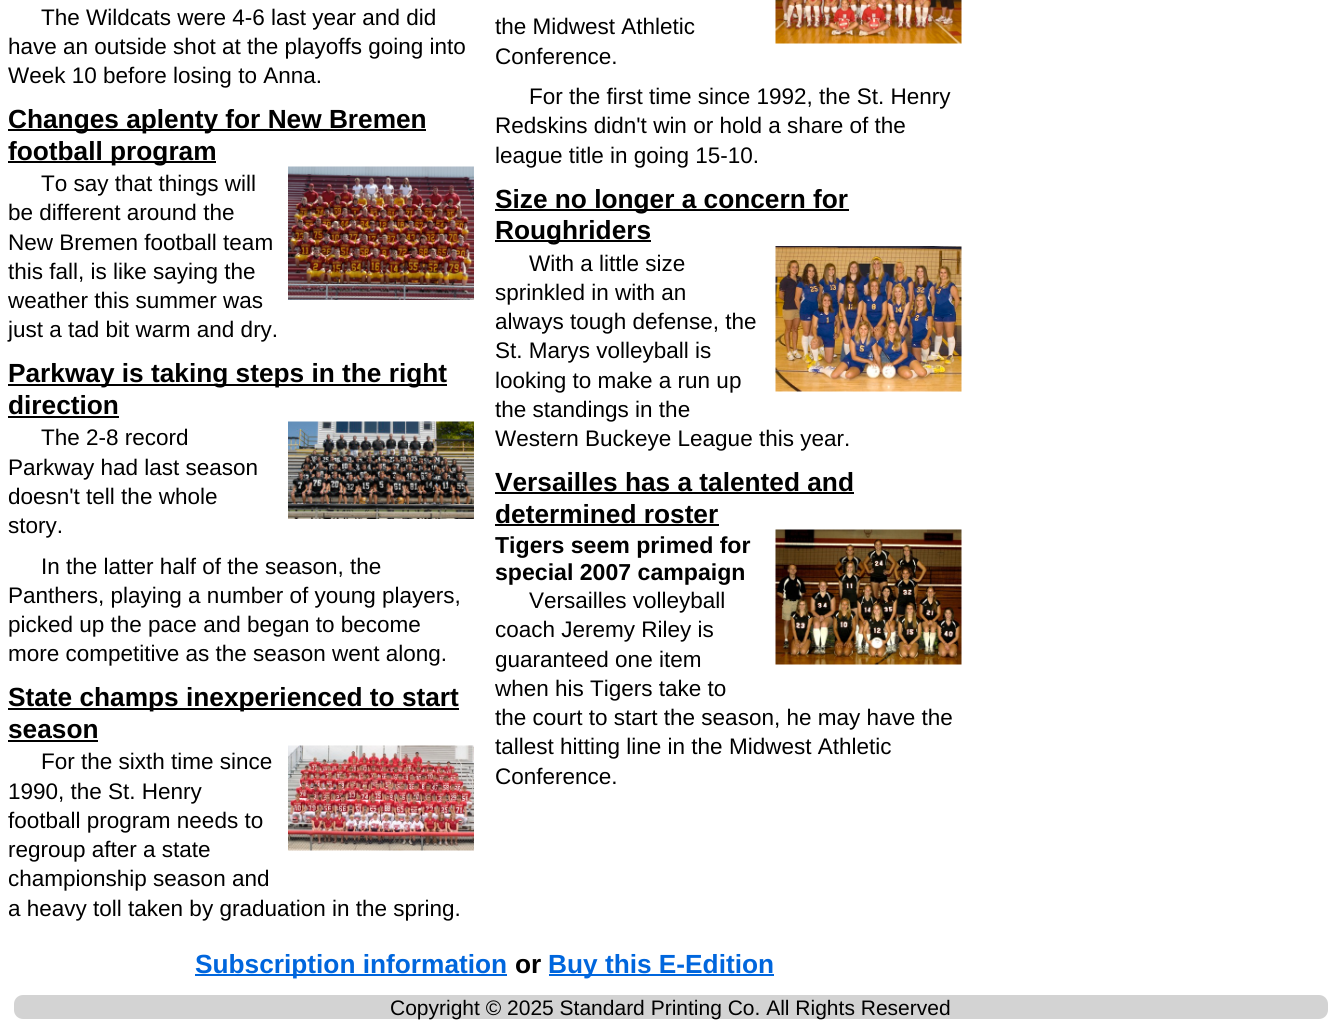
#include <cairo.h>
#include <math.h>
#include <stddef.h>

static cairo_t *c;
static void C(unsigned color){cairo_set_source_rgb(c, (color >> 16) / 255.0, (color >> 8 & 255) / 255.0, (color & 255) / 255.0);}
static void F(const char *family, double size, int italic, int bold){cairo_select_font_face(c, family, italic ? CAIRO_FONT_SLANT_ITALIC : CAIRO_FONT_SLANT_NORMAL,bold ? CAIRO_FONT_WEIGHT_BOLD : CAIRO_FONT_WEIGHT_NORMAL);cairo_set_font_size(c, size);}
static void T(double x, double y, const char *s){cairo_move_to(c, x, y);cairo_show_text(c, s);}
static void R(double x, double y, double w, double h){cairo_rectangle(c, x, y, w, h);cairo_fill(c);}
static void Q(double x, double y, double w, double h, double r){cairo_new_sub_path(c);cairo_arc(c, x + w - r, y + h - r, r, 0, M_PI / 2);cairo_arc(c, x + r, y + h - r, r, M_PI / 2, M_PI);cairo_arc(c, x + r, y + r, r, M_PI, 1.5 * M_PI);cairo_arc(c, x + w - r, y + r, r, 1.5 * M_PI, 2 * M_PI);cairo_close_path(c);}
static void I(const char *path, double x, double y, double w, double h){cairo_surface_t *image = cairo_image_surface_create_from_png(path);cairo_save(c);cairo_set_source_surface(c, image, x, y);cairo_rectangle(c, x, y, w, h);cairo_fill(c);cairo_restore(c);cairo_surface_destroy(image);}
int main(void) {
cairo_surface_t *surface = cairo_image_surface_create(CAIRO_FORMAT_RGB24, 1340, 1027);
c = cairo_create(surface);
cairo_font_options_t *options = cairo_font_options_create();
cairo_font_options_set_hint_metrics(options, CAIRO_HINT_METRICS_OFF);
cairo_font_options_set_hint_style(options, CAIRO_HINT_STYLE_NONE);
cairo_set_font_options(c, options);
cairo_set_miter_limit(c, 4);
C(0xffffff);
cairo_paint(c);
F("Liberation Sans",22.5,0,0);
C(0x000000);
T(41,25,"The Wildcats were 4-6 last year and did");
T(8,54,"have an outside shot at the playoffs going into");
T(8,83,"Week 10 before losing to Anna.");
T(495,34,"the Midwest Athletic");
T(495,64,"Conference.");
I("1.png",775,0,187,44);
T(529,104,"For the first time since 1992, the St. Henry");
T(495,133,"Redskins didn't win or hold a share of the");
T(495,163,"league title in going 15-10.");
R(8,129,418,2);
F("Liberation Sans",26.25,0,1);
T(8,128,"Changes aplenty for New Bremen");
R(8,161,208,2);
T(8,160,"football program");
F("Liberation Sans",22.5,0,0);
T(41,191,"To say that things will");
T(8,220,"be different around the");
T(8,250,"New Bremen football team");
T(8,279,"this fall, is like saying the");
T(8,308,"weather this summer was");
T(8,337,"just a tad bit warm and dry.");
I("2.png",288,166,186,134);
R(495,209,354,2);
F("Liberation Sans",26.25,0,1);
T(495,208,"Size no longer a concern for");
R(495,240,156,2);
T(495,239,"Roughriders");
F("Liberation Sans",22.5,0,0);
T(529,271,"With a little size");
T(495,300,"sprinkled in with an");
T(495,329,"always tough defense, the");
T(495,358,"St. Marys volleyball is");
T(495,388,"looking to make a run up");
T(495,417,"the standings in the");
T(495,446,"Western Buckeye League this year.");
I("3.png",775,246,187,146);
R(8,384,439,2);
F("Liberation Sans",26.25,0,1);
T(8,382,"Parkway is taking steps in the right");
T(8,414,"direction");
R(8,416,111,2);
F("Liberation Sans",22.5,0,0);
T(41,445,"The 2-8 record");
T(8,475,"Parkway had last season");
T(8,504,"doesn't tell the whole");
T(8,533,"story.");
I("4.png",288,421,186,98);
T(41,574,"In the latter half of the season, the");
T(8,603,"Panthers, playing a number of young players,");
T(8,632,"picked up the pace and began to become");
T(8,661,"more competitive as the season went along.");
F("Liberation Sans",26.25,0,1);
T(495,491,"Versailles has a talented and");
R(495,492,359,2);
T(495,523,"determined roster");
R(495,524,224,2);
F("Liberation Sans",23.1,0,1);
T(495,553,"Tigers seem primed for");
T(495,580,"special 2007 campaign");
I("5.png",775,529,187,136);
F("Liberation Sans",22.5,0,0);
T(529,608,"Versailles volleyball");
T(495,637,"coach Jeremy Riley is");
T(495,667,"guaranteed one item");
T(495,696,"when his Tigers take to");
T(495,725,"the court to start the season, he may have the");
T(495,754,"tallest hitting line in the Midwest Athletic");
T(495,784,"Conference.");
R(8,708,451,2);
F("Liberation Sans",26.25,0,1);
T(8,706,"State champs inexperienced to start");
T(8,738,"season");
R(8,740,90,2);
I("6.png",288,745,186,106);
F("Liberation Sans",22.5,0,0);
T(41,769,"For the sixth time since");
T(8,799,"1990, the St. Henry");
T(8,828,"football program needs to");
T(8,857,"regroup after a state");
T(8,886,"championship season and");
T(8,916,"a heavy toll taken by graduation in the spring.");
C(0x0066dd);
R(195,974,312,2);
F("Liberation Sans",26.25,0,1);
T(195,973,"Subscription information");
C(0x000000);
T(515,973,"or");
C(0x0066dd);
R(549,974,225,2);
T(548,973,"Buy this E-Edition");
C(0xd3d3d3);
Q(14,995,1314,24,9);
cairo_fill(c);
F("Liberation Sans",21,0,0);
C(0x000000);
T(390,1015,"Copyright © 2025 Standard Printing Co. All Rights Reserved");
cairo_surface_write_to_png(surface, "o.png");
cairo_font_options_destroy(options);
cairo_destroy(c);
cairo_surface_destroy(surface);
return 0;
}
